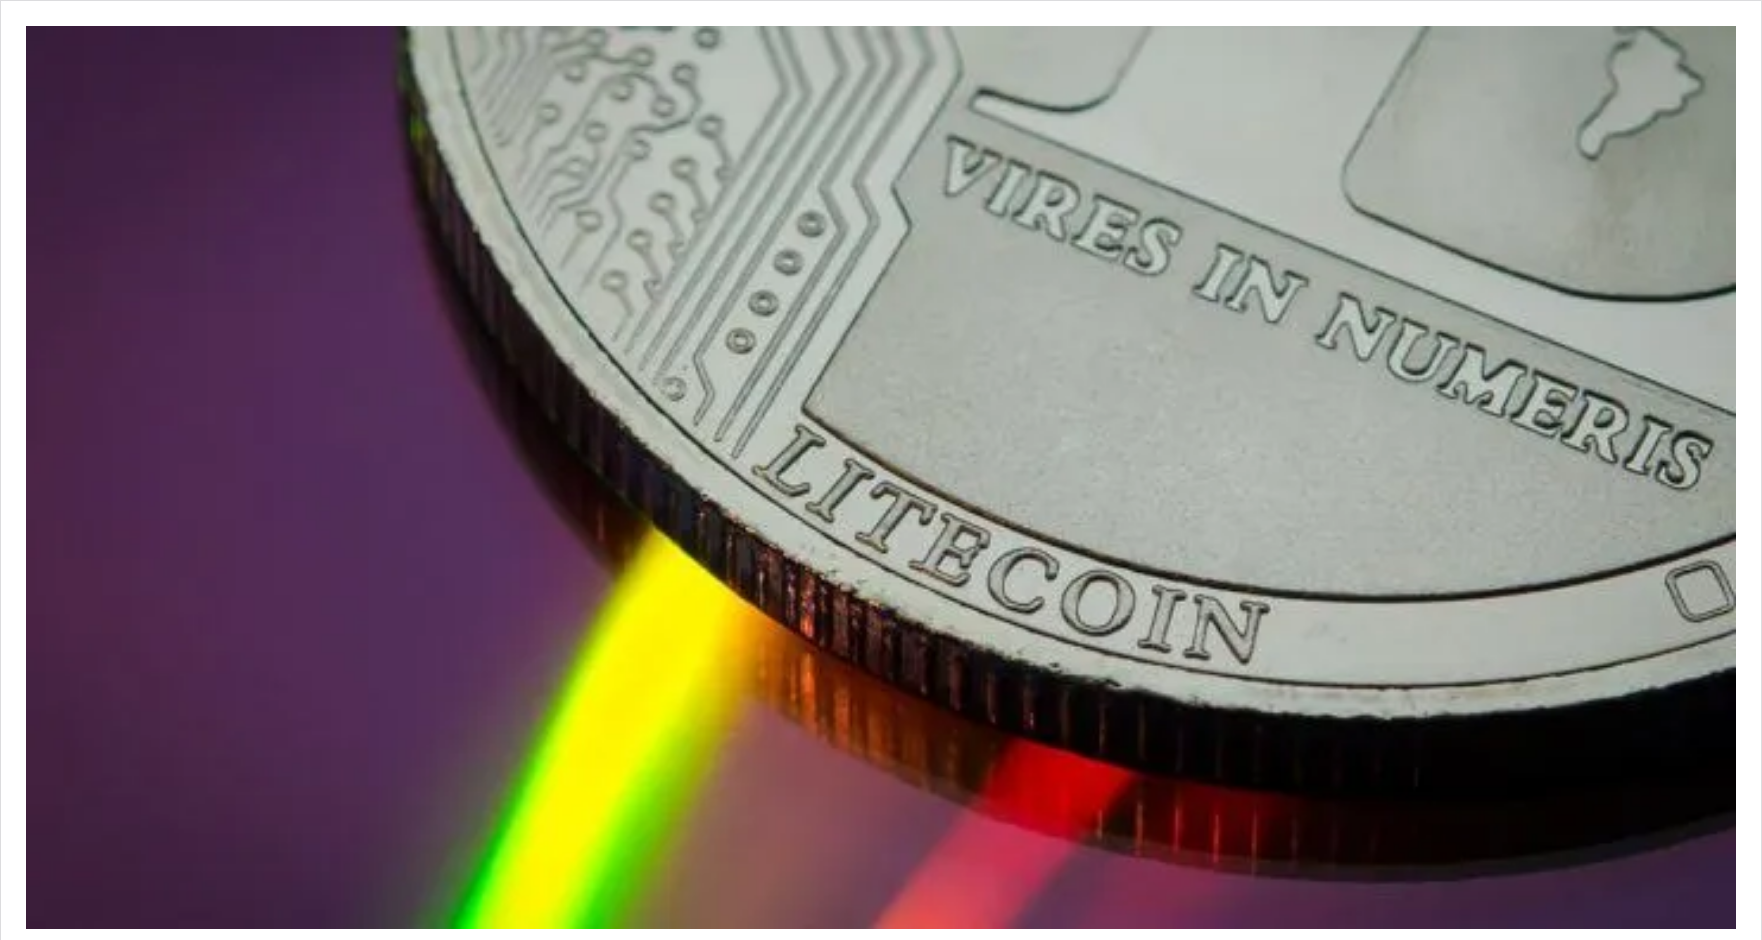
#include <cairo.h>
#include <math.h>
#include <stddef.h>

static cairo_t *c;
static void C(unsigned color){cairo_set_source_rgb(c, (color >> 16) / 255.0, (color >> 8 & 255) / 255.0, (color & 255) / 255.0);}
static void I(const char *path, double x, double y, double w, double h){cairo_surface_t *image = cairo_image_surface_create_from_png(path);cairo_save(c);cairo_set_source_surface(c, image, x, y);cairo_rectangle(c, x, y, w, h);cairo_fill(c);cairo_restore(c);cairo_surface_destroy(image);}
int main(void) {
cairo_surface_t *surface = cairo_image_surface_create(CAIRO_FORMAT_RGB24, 1762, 940);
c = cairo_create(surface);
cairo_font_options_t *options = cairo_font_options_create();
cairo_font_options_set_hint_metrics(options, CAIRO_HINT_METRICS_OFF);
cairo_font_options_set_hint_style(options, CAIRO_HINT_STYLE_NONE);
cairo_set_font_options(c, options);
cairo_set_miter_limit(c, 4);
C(0xffffff);
cairo_paint(c);
cairo_rectangle(c,.5,.5,1761,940);
C(0xdcdcde);
cairo_set_line_width(c,1);
cairo_stroke(c);
I("1.png",26,26,1710,903);
cairo_surface_write_to_png(surface, "o.png");
cairo_font_options_destroy(options);
cairo_destroy(c);
cairo_surface_destroy(surface);
return 0;
}
